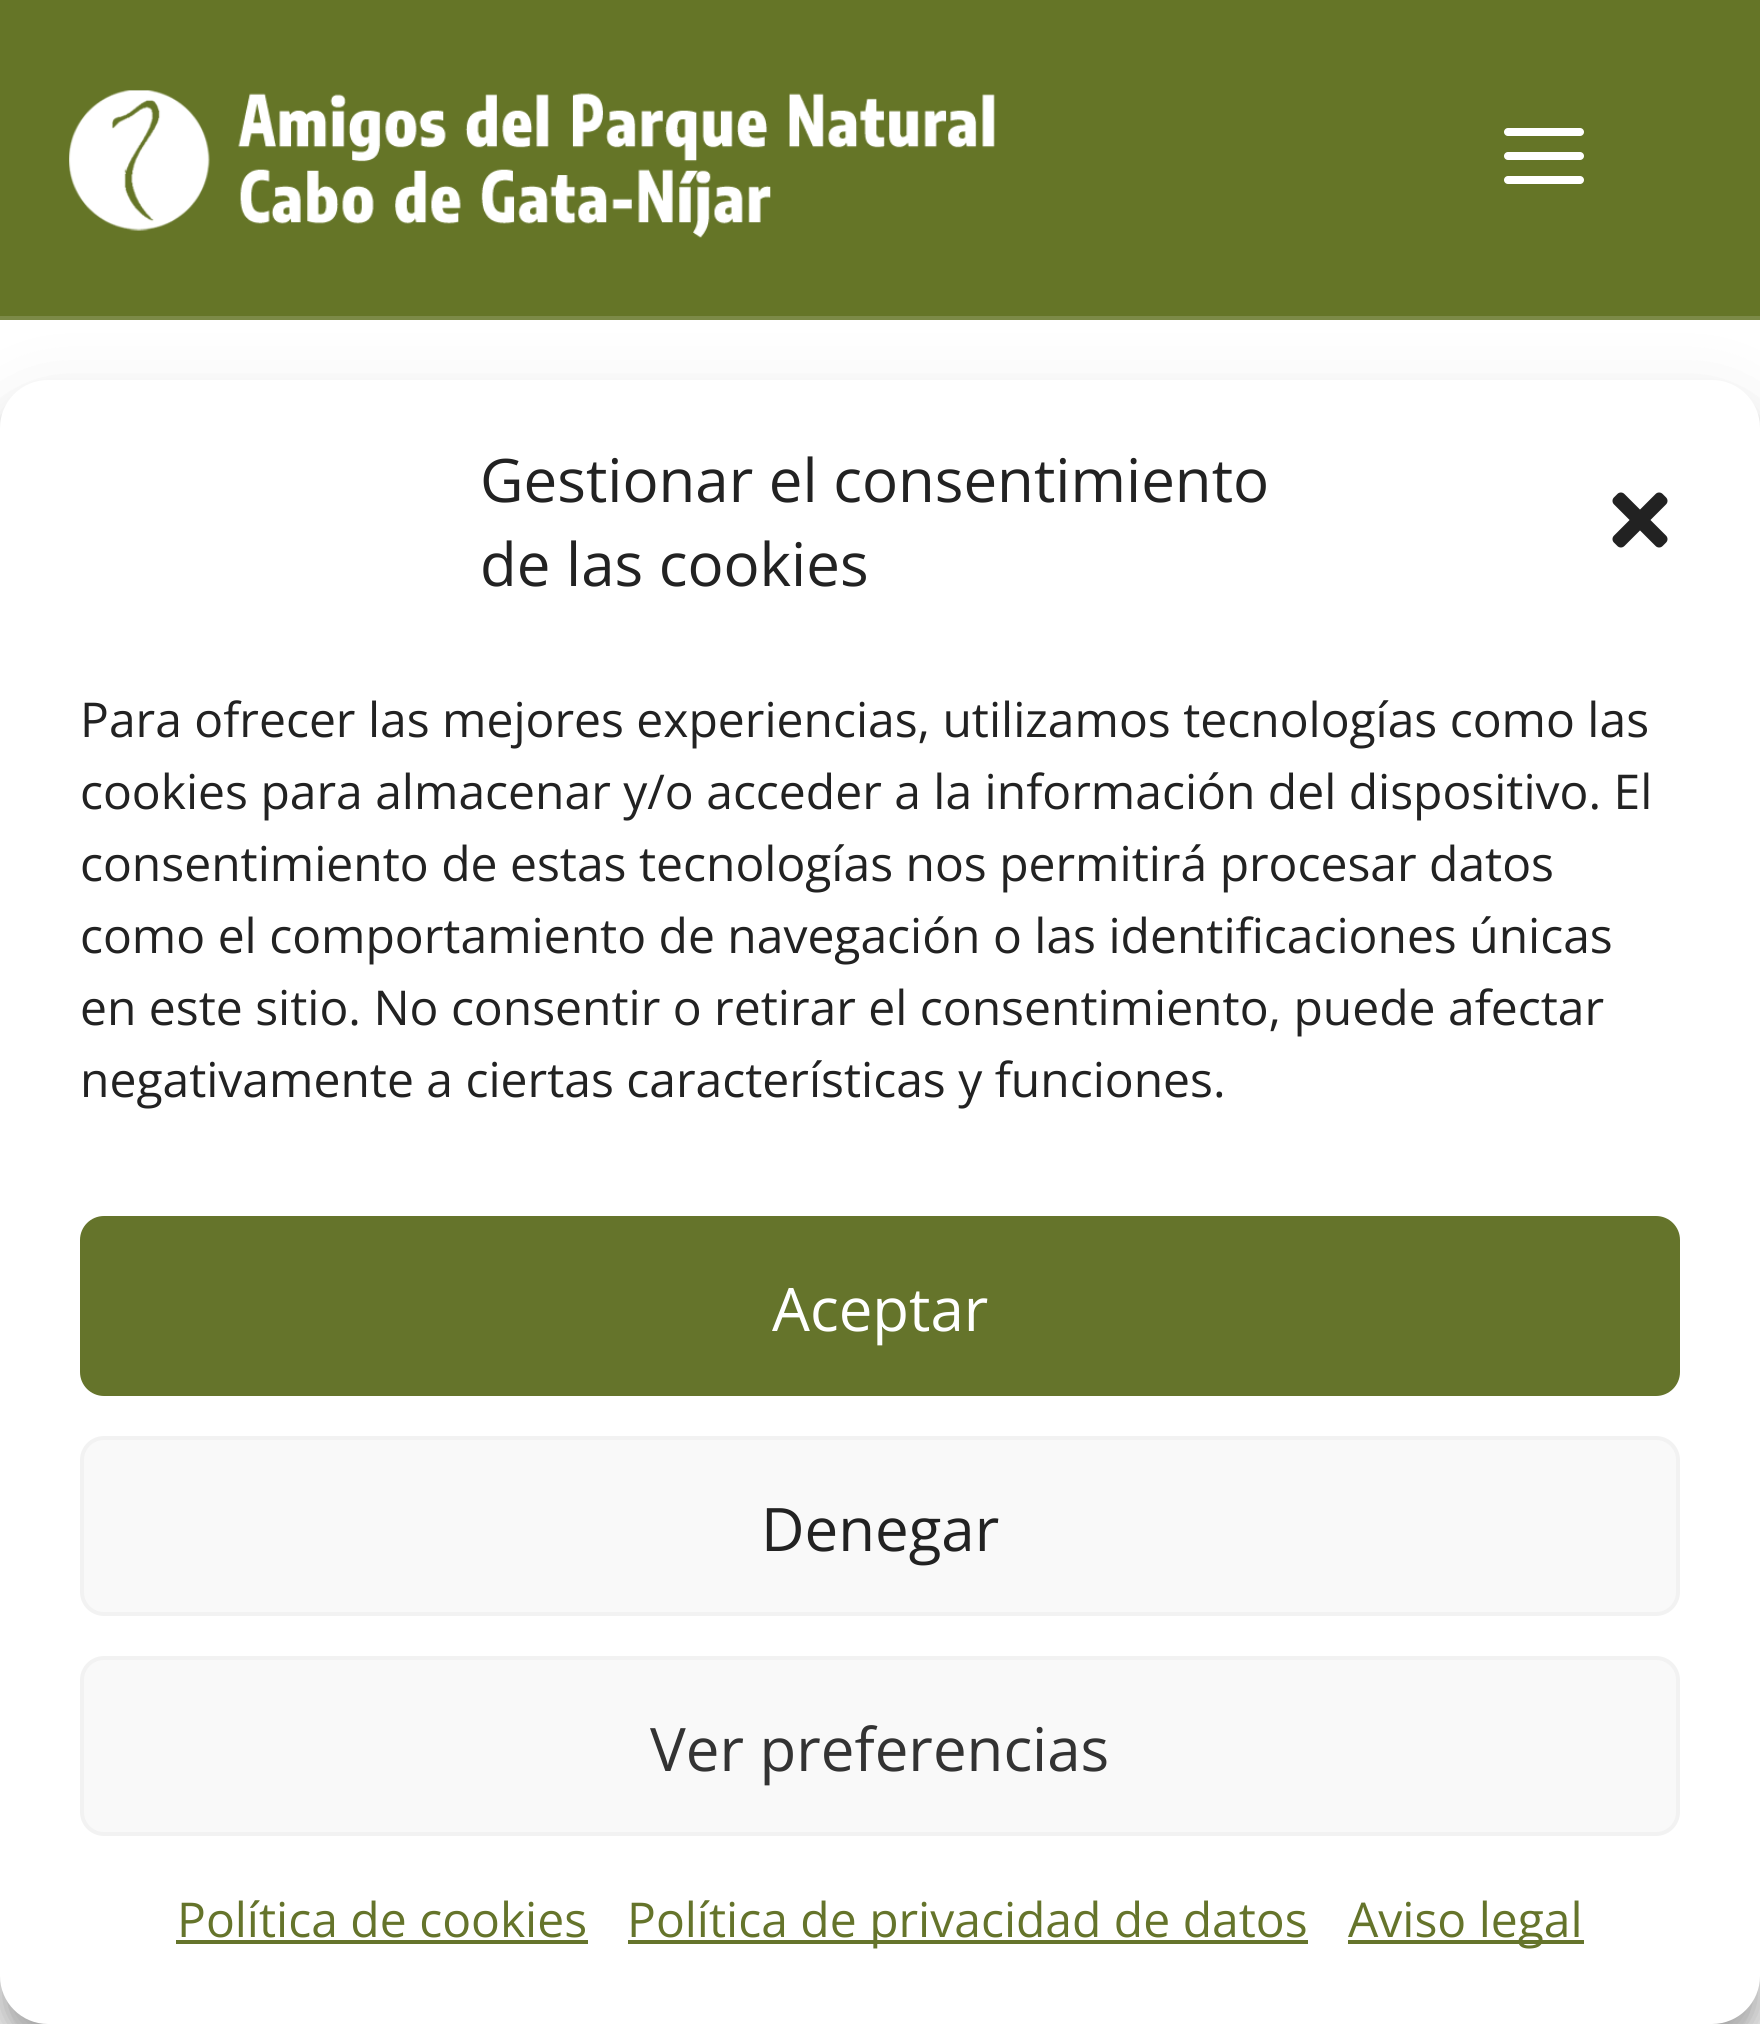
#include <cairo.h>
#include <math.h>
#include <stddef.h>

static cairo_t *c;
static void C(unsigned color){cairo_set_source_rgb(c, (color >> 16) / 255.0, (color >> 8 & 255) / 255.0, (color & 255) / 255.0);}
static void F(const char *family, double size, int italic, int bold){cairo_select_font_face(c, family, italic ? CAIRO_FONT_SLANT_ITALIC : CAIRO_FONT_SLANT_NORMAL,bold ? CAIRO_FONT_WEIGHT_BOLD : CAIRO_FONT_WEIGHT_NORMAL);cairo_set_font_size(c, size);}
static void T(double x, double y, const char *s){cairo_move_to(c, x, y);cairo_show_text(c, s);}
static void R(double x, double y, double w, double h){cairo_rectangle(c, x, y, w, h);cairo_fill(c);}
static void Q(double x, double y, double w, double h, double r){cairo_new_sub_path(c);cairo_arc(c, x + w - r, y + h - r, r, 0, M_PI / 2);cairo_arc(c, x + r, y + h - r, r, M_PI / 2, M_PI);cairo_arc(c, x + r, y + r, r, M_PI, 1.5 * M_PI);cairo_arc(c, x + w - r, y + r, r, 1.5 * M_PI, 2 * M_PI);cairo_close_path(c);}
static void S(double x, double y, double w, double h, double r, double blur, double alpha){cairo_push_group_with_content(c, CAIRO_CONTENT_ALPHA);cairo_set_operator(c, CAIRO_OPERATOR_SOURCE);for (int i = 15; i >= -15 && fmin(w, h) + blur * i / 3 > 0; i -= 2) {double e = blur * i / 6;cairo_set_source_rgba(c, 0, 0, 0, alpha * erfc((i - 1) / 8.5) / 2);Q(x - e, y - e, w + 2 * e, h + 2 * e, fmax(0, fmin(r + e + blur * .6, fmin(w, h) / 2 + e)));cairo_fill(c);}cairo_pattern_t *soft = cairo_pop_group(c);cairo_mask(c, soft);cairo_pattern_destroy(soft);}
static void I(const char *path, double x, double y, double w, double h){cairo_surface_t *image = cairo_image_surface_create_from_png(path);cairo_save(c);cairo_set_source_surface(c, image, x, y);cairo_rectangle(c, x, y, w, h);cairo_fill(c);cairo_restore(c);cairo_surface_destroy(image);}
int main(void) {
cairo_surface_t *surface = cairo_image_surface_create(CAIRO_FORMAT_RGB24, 1760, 2024);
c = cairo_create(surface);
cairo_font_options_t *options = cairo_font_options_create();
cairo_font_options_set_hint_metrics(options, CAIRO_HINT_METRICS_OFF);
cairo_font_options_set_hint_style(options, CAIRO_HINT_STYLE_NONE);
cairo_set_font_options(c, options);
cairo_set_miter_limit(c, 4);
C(0x657527);
cairo_paint(c);
I("1.png",69,90,926,148);
I("2.png",1504,128,80,56);
C(0xffffff);
R(0,320,1760,1704);
C(0x7c8a47);
R(0,316,1760,4);
C(0x000000);
S(0,404,1760,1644,48,12,.23);
S(0,420,1760,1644,48,40,.19);
C(0xffffff);
Q(0,380,1760,1644,48);
cairo_fill(c);
F("Open Sans",60,0,0);
C(0x222222);
T(480,502,"Gestionar el consentimiento");
T(480,586,"de las cookies");
I("3.png",1612,492,56,56);
F("Open Sans",48,0,0);
T(80,737,"Para ofrecer las mejores experiencias, utilizamos tecnologías como las");
T(80,809,"cookies para almacenar y/o acceder a la información del dispositivo. El");
T(80,881,"consentimiento de estas tecnologías nos permitirá procesar datos");
T(80,953,"como el comportamiento de navegación o las identificaciones únicas");
T(80,1025,"en este sitio. No consentir o retirar el consentimiento, puede afectar");
T(80,1097,"negativamente a ciertas características y funciones.");
C(0x65742b);
Q(82,1218,1596,176,22);
cairo_fill_preserve(c);
cairo_set_line_width(c,4);
cairo_stroke(c);
F("Open Sans",60,0,0);
C(0xffffff);
T(772,1331,"Aceptar");
C(0xf9f9f9);
Q(82,1438,1596,176,22);
cairo_fill_preserve(c);
C(0xf2f2f2);
cairo_stroke(c);
C(0x222222);
T(761,1551,"Denegar");
C(0xf9f9f9);
Q(82,1658,1596,176,22);
cairo_fill_preserve(c);
C(0xf2f2f2);
cairo_stroke(c);
C(0x333333);
T(650,1771,"Ver preferencias");
F("Open Sans",48,0,0);
C(0x65742b);
T(177,1937,"Política de cookies");
R(176,1940,412,4);
R(628,1940,680,4);
T(627,1937,"Política de privacidad de datos");
R(1348,1940,236,4);
T(1348,1937,"Aviso legal");
cairo_surface_write_to_png(surface, "o.png");
cairo_font_options_destroy(options);
cairo_destroy(c);
cairo_surface_destroy(surface);
return 0;
}
